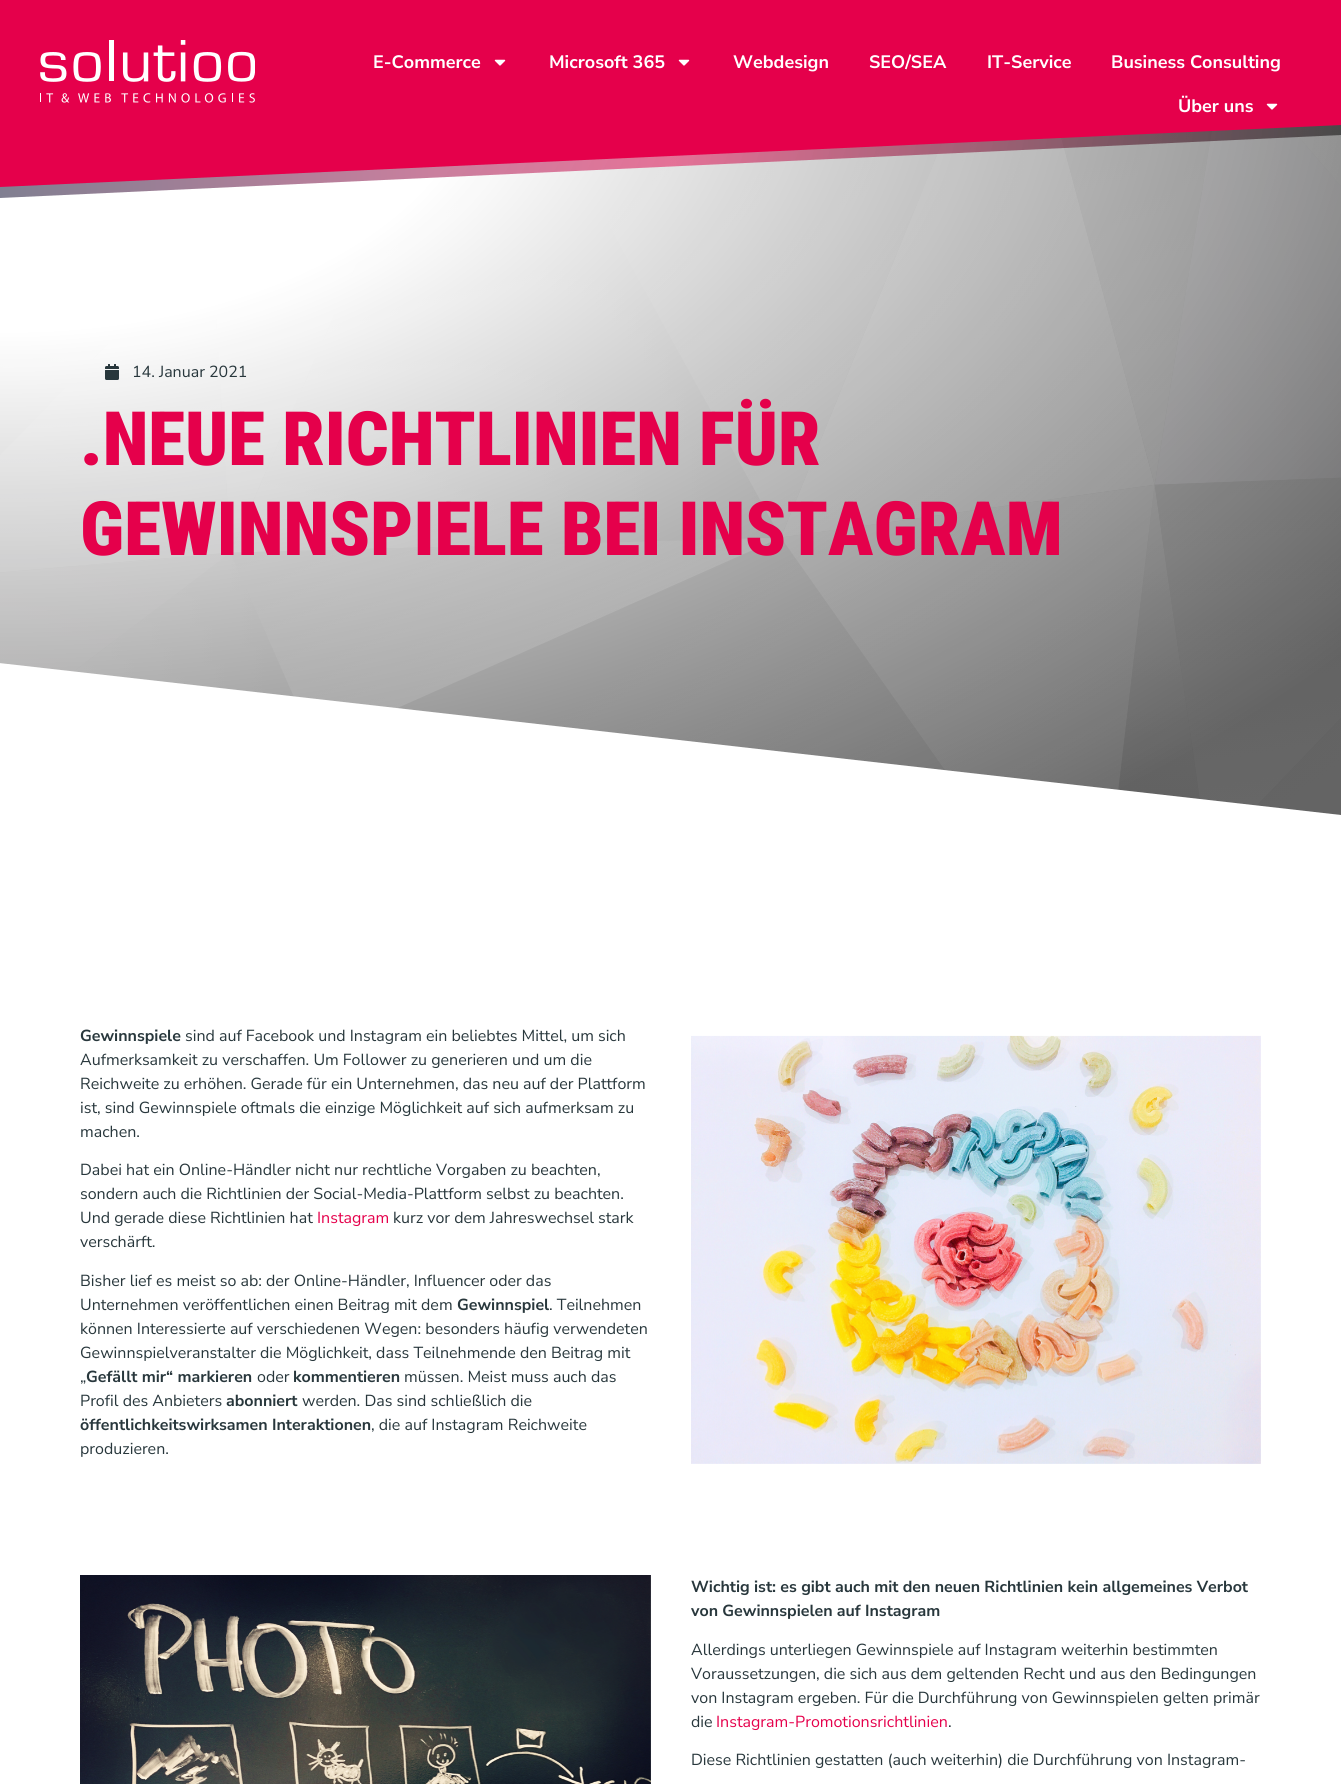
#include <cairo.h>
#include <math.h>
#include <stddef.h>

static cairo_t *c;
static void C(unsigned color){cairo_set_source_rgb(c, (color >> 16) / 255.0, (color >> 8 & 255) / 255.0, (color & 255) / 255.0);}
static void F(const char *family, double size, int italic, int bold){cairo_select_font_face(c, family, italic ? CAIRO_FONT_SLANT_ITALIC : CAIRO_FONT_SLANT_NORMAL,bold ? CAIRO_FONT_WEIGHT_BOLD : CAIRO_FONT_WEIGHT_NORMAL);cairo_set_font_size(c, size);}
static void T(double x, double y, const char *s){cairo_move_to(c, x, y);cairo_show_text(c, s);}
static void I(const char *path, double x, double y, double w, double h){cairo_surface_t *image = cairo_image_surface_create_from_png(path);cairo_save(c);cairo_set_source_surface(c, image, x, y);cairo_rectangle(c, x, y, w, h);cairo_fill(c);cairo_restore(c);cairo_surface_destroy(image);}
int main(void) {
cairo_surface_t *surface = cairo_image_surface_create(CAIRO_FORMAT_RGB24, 1341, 1784);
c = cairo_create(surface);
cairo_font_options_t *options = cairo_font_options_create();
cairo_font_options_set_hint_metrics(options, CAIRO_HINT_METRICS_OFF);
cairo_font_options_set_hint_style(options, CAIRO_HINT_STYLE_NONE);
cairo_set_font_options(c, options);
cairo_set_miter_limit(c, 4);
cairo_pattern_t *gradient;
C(0xffffff);
cairo_paint(c);
I("3.png",0,125,1341,690);
gradient = cairo_pattern_create_linear(0,104,1341,104);
cairo_pattern_add_color_stop_rgba(gradient,0,0.008,0,0.141,.5);
cairo_pattern_add_color_stop_rgba(gradient,.5,0.898,0,0.294,.5);
cairo_pattern_add_color_stop_rgba(gradient,1,0,0,0,.5);
cairo_set_source(c,gradient);
cairo_pattern_destroy(gradient);
cairo_new_path(c);
cairo_move_to(c,0,0);
cairo_line_to(c,0,198);
cairo_line_to(c,1341,135);
cairo_line_to(c,1341,0);
cairo_close_path(c);
cairo_fill(c);
C(0xe5004b);
cairo_new_path(c);
cairo_move_to(c,0,0);
cairo_line_to(c,0,187);
cairo_line_to(c,1341,125);
cairo_line_to(c,1341,0);
cairo_close_path(c);
cairo_fill(c);
I("1.png",40,40,215,63);
F("Nunito Sans",18,0,1);
C(0xffffff);
T(373,68,"E-Commerce");
I("2.png",494,59,12,7);
T(549,68,"Microsoft 365");
I("2.png",678,59,12,7);
T(733,68,"Webdesign");
T(869,68,"SEO/SEA");
T(987,68,"IT-Service");
T(1111,68,"Business Consulting");
T(1178,112,"Über uns");
I("2.png",1266,103,12,7);
I("4.png",105,364,14,16);
F("Nunito Sans",16,0,0);
C(0x28373c);
T(132,377,"14. Januar 2021");
F("Roboto Condensed Black",75,0,0);
C(0xe5004b);
T(80,465,".NEUE RICHTLINIEN FÜR");
T(80,555,"GEWINNSPIELE BEI INSTAGRAM");
C(0xffffff);
cairo_new_path(c);
cairo_move_to(c,1341,815);
cairo_line_to(c,1341,825);
cairo_line_to(c,-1,825);
cairo_line_to(c,-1,663);
cairo_close_path(c);
cairo_fill(c);
F("Nunito Sans",16,0,1);
C(0x28373c);
T(80,1041,"Gewinnspiele");
F("Nunito Sans",16,0,0);
T(185,1041,"sind auf Facebook und Instagram ein beliebtes Mittel, um sich");
T(80,1065,"Aufmerksamkeit zu verschaffen. Um Follower zu generieren und um die");
T(80,1089,"Reichweite zu erhöhen. Gerade für ein Unternehmen, das neu auf der Plattform");
T(80,1113,"ist, sind Gewinnspiele oftmals die einzige Möglichkeit auf sich aufmerksam zu");
T(80,1137,"machen.");
T(80,1175,"Dabei hat ein Online-Händler nicht nur rechtliche Vorgaben zu beachten,");
T(80,1199,"sondern auch die Richtlinien der Social-Media-Plattform selbst zu beachten.");
T(80,1223,"Und gerade diese Richtlinien hat");
C(0xe5004b);
T(317,1223,"Instagram");
C(0x28373c);
T(393,1223,"kurz vor dem Jahreswechsel stark");
T(80,1247,"verschärft.");
T(80,1286,"Bisher lief es meist so ab: der Online-Händler, Influencer oder das");
T(80,1310,"Unternehmen veröffentlichen einen Beitrag mit dem");
F("Nunito Sans",16,0,1);
T(457,1310,"Gewinnspiel");
F("Nunito Sans",16,0,0);
T(549,1310,". Teilnehmen");
T(80,1334,"können Interessierte auf verschiedenen Wegen: besonders häufig verwendeten");
T(80,1358,"Gewinnspielveranstalter die Möglichkeit, dass Teilnehmende den Beitrag mit");
T(80,1382,"„");
F("Nunito Sans",16,0,1);
T(86,1382,"Gefällt mir“ markieren");
F("Nunito Sans",16,0,0);
T(257,1382,"oder");
F("Nunito Sans",16,0,1);
T(293,1382,"kommentieren");
F("Nunito Sans",16,0,0);
T(404,1382,"müssen. Meist muss auch das");
T(80,1406,"Profil des Anbieters");
F("Nunito Sans",16,0,1);
T(226,1406,"abonniert");
F("Nunito Sans",16,0,0);
T(302,1406,"werden. Das sind schließlich die");
F("Nunito Sans",16,0,1);
T(80,1430,"öffentlichkeitswirksamen Interaktionen");
F("Nunito Sans",16,0,0);
T(371,1430,", die auf Instagram Reichweite");
T(80,1454,"produzieren.");
I("5.png",691,1035,570,429);
I("6.png",80,1575,571,209);
F("Nunito Sans",16,0,1);
T(691,1592,"Wichtig ist: es gibt auch mit den neuen Richtlinien kein allgemeines Verbot");
T(691,1616,"von Gewinnspielen auf Instagram");
F("Nunito Sans",16,0,0);
T(691,1655,"Allerdings unterliegen Gewinnspiele auf Instagram weiterhin bestimmten");
T(691,1679,"Voraussetzungen, die sich aus dem geltenden Recht und aus den Bedingungen");
T(691,1703,"von Instagram ergeben. Für die Durchführung von Gewinnspielen gelten primär");
T(691,1727,"die");
C(0xe5004b);
T(716,1727,"Instagram-Promotionsrichtlinien");
C(0x28373c);
T(948,1727,".");
T(691,1765,"Diese Richtlinien gestatten (auch weiterhin) die Durchführung von Instagram-");
cairo_surface_write_to_png(surface, "o.png");
cairo_font_options_destroy(options);
cairo_destroy(c);
cairo_surface_destroy(surface);
return 0;
}
